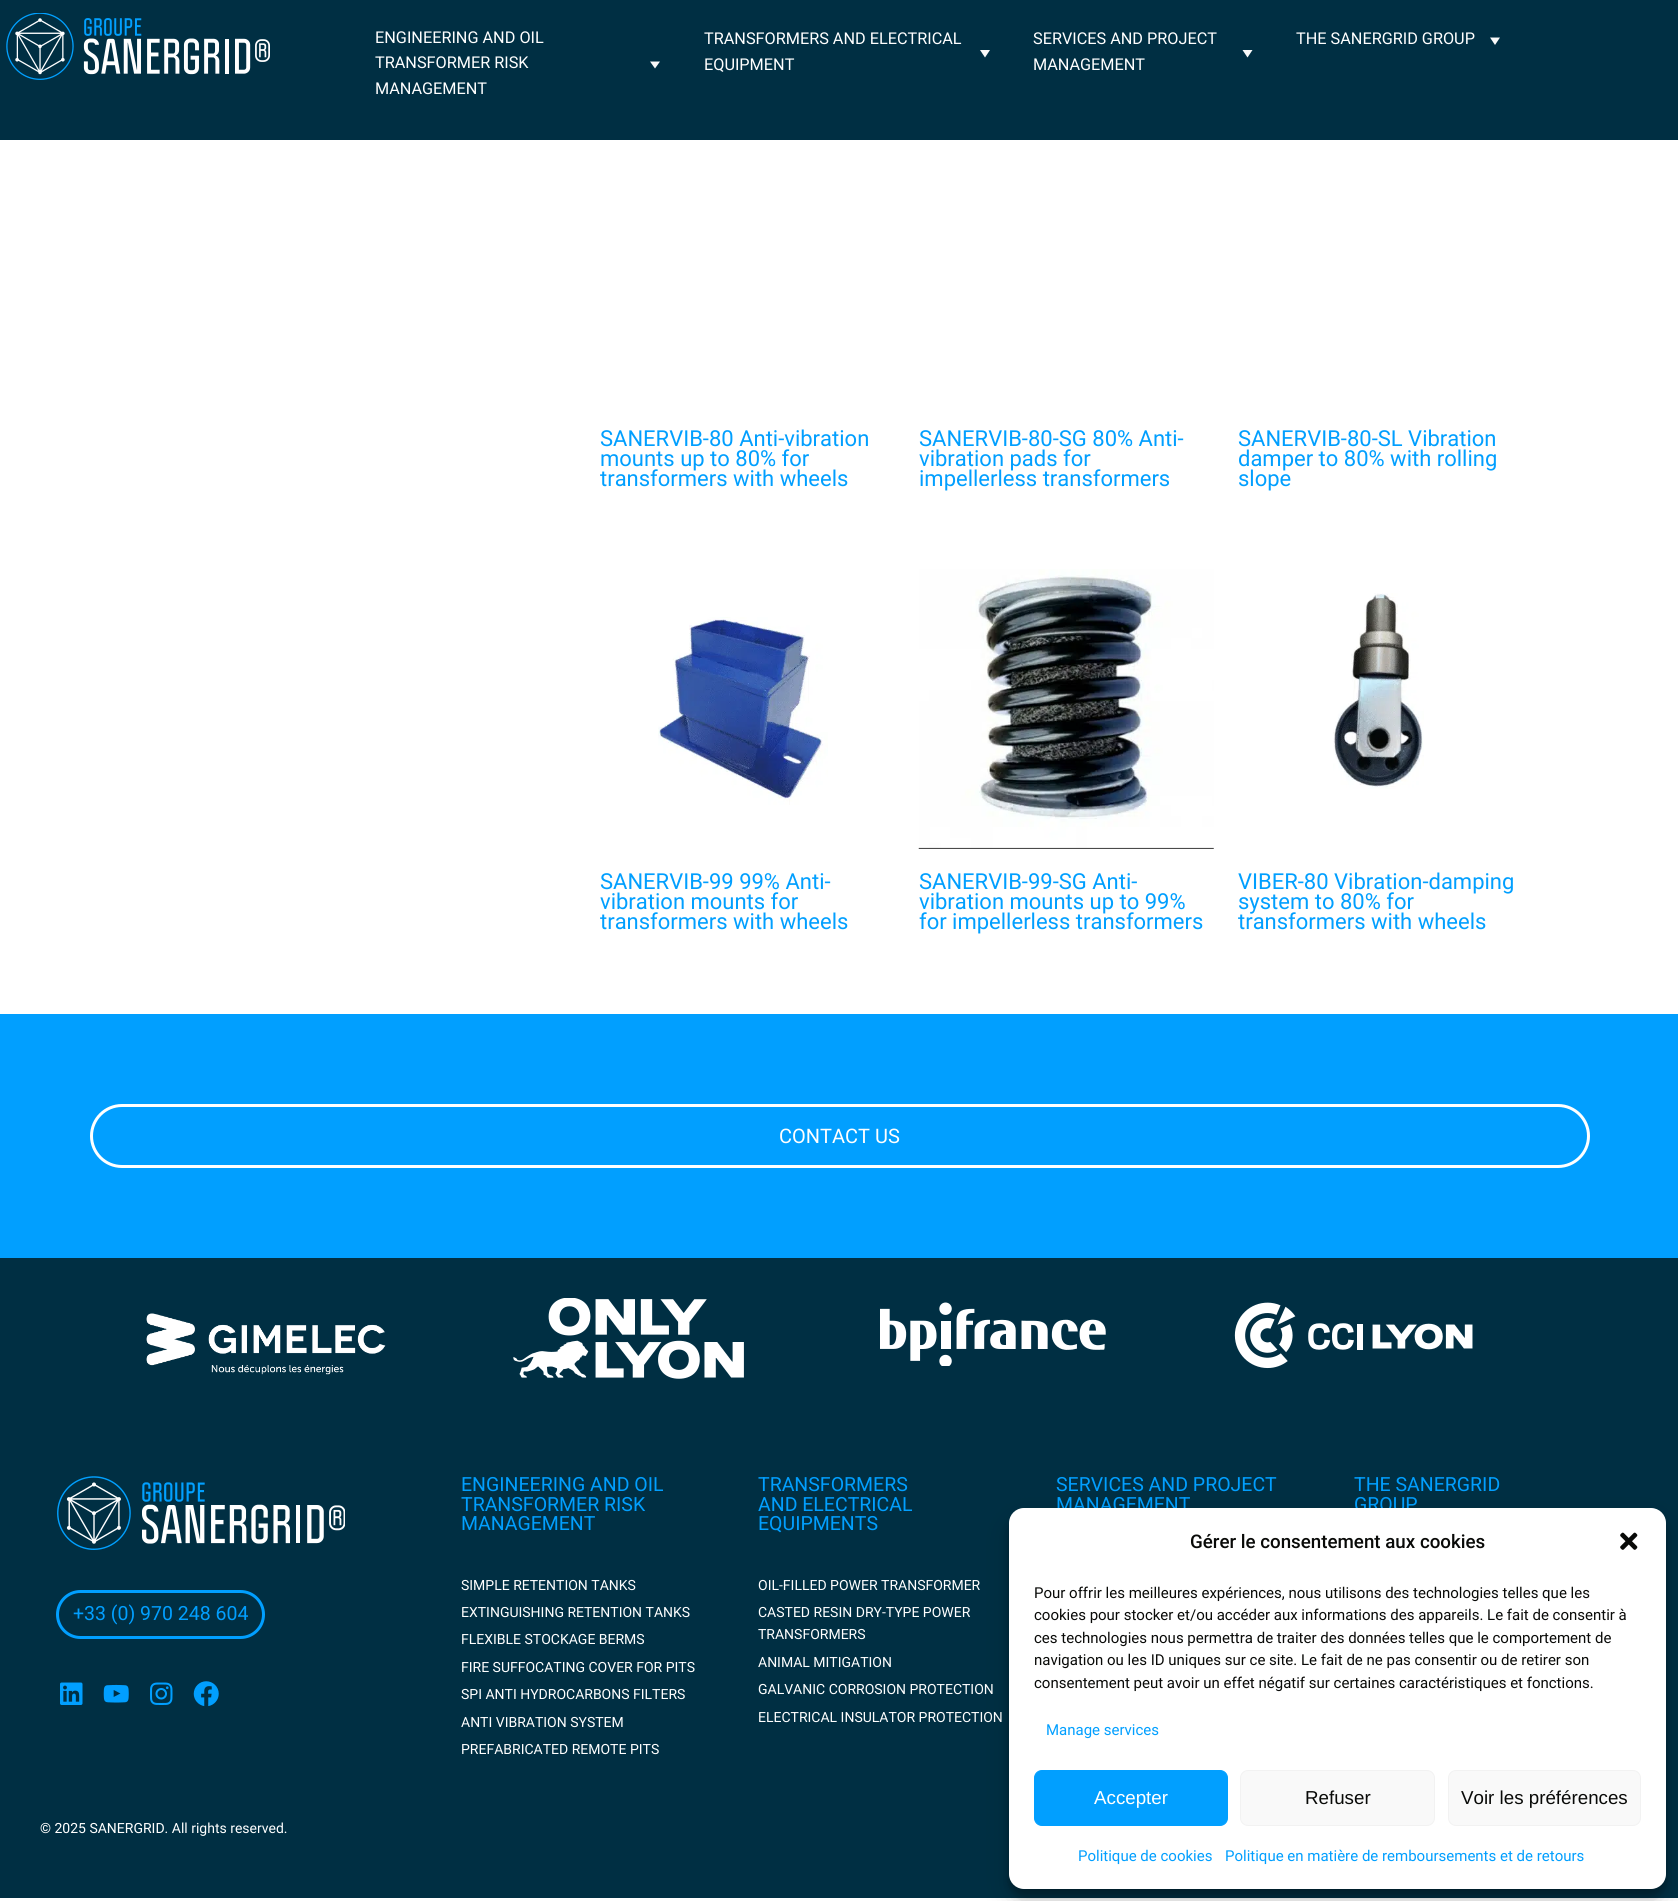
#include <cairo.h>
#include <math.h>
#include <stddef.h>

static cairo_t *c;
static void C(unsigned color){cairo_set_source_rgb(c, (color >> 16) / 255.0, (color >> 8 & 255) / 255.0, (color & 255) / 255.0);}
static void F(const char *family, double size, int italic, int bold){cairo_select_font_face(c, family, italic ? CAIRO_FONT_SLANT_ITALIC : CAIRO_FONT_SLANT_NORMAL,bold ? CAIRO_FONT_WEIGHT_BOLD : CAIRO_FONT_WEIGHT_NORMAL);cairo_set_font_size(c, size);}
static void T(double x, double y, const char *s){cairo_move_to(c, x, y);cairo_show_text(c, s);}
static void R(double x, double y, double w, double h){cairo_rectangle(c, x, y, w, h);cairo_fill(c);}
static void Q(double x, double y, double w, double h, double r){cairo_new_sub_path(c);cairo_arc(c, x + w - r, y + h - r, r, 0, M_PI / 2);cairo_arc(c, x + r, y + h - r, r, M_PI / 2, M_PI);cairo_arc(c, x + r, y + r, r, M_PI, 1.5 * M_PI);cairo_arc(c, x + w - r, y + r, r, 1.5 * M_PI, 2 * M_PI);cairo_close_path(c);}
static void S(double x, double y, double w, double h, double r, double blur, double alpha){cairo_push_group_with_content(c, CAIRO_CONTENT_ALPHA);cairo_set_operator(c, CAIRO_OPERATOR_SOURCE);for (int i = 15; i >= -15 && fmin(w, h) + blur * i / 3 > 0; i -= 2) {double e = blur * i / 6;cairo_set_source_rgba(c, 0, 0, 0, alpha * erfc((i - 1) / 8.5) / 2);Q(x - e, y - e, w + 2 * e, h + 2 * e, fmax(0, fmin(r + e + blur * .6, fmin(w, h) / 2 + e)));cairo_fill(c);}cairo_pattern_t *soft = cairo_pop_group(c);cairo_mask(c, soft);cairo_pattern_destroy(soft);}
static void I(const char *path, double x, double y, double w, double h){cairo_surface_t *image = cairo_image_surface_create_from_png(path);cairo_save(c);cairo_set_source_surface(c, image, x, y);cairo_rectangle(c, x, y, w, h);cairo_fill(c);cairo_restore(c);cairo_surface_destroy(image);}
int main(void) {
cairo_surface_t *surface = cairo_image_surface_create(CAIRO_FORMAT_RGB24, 1678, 1901);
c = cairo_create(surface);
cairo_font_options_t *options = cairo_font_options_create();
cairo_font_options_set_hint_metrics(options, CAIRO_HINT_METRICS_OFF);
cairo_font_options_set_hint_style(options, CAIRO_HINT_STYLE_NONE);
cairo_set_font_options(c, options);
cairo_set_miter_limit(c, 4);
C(0xffffff);
cairo_paint(c);
C(0x002f43);
R(0,0,1678,140);
I("1.png",6,13,264,67);
F("Roboto",16.25,0,0);
C(0xffffff);
T(375,43,"ENGINEERING AND OIL");
T(375,68,"TRANSFORMER RISK");
T(375,94,"MANAGEMENT");
C(0xfafafa);
cairo_new_path(c);
cairo_move_to(c,660,61.5);
cairo_line_to(c,655,68.5);
cairo_line_to(c,650,61.5);
cairo_close_path(c);
cairo_fill(c);
C(0xffffff);
T(704,44,"TRANSFORMERS AND ELECTRICAL");
T(704,70,"EQUIPMENT");
C(0xfafafa);
cairo_new_path(c);
cairo_move_to(c,990,50);
cairo_line_to(c,985,57.5);
cairo_line_to(c,980,50);
cairo_close_path(c);
cairo_fill(c);
C(0xffffff);
T(1033,44,"SERVICES AND PROJECT");
T(1033,70,"MANAGEMENT");
C(0xfafafa);
cairo_new_path(c);
cairo_move_to(c,1252.5,50);
cairo_line_to(c,1247.5,57.5);
cairo_line_to(c,1242.5,50);
cairo_close_path(c);
cairo_fill(c);
C(0xffffff);
T(1296,44,"THE SANERGRID GROUP");
C(0xfafafa);
cairo_new_path(c);
cairo_move_to(c,1500,37.5);
cairo_line_to(c,1495,45);
cairo_line_to(c,1490,37.5);
cairo_close_path(c);
cairo_fill(c);
F("Roboto",22,0,0);
C(0x019fff);
T(600,446,"SANERVIB-80 Anti-vibration");
T(600,466,"mounts up to 80% for");
T(600,486,"transformers with wheels");
T(919,446,"SANERVIB-80-SG 80% Anti-");
T(919,466,"vibration pads for");
T(919,486,"impellerless transformers");
T(1238,446,"SANERVIB-80-SL Vibration");
T(1238,466,"damper to 80% with rolling");
T(1238,486,"slope");
I("2.png",658,617,170,188);
T(600,889,"SANERVIB-99 99% Anti-");
T(600,909,"vibration mounts for");
T(600,929,"transformers with wheels");
I("3.png",918,569,296,280);
T(919,889,"SANERVIB-99-SG Anti-");
T(919,909,"vibration mounts up to 99%");
T(919,929,"for impellerless transformers");
I("4.png",1333,593,91,196);
T(1238,889,"VIBER-80 Vibration-damping");
T(1238,909,"system to 80% for");
T(1238,929,"transformers with wheels");
R(0,1014,1678,244);
Q(91.5,1105.5,1497,61,30.5);
C(0xffffff);
cairo_set_line_width(c,3);
cairo_stroke(c);
F("Roboto",20,0,0);
T(779,1143,"CONTACT US");
C(0x002f43);
R(0,1258,1678,640);
I("5.png",146,1313,240,62);
I("6.png",513,1298,231,81);
I("7.png",880,1302,226,64);
I("8.png",1234,1302,239,67);
I("9.png",57,1476,288,74);
Q(57.5,1591.5,206,46,23);
C(0x019fff);
cairo_stroke(c);
F("Roboto",19.5,0,0);
T(73,1620,"+33 (0) 970 248 604");
I("10.png",60,1682,23,23);
I("11.png",103,1684,26,19);
I("12.png",150,1682,23,23);
I("13.png",193,1681,26,26);
T(461,1491,"ENGINEERING AND OIL");
T(461,1511,"TRANSFORMER RISK");
T(461,1530,"MANAGEMENT");
F("Roboto",14,0,0);
C(0xffffff);
T(461,1590,"SIMPLE RETENTION TANKS");
T(461,1617,"EXTINGUISHING RETENTION TANKS");
T(461,1644,"FLEXIBLE STOCKAGE BERMS");
T(461,1672,"FIRE SUFFOCATING COVER FOR PITS");
T(461,1699,"SPI ANTI HYDROCARBONS FILTERS");
T(461,1727,"ANTI VIBRATION SYSTEM");
T(461,1754,"PREFABRICATED REMOTE PITS");
F("Roboto",19.5,0,0);
C(0x019fff);
T(758,1491,"TRANSFORMERS");
T(758,1511,"AND ELECTRICAL");
T(758,1530,"EQUIPMENTS");
F("Roboto",14,0,0);
C(0xffffff);
T(758,1590,"OIL-FILLED POWER TRANSFORMER");
T(758,1617,"CASTED RESIN DRY-TYPE POWER");
T(758,1639,"TRANSFORMERS");
T(758,1667,"ANIMAL MITIGATION");
T(758,1694,"GALVANIC CORROSION PROTECTION");
T(758,1722,"ELECTRICAL INSULATOR PROTECTION");
F("Roboto",19.5,0,0);
C(0x019fff);
T(1056,1491,"SERVICES AND PROJECT");
T(1056,1511,"MANAGEMENT");
T(1354,1491,"THE SANERGRID");
T(1354,1511,"GROUP");
F("Roboto",14,0,0);
C(0xffffff);
T(40,1833,"© 2025 SANERGRID. All rights reserved.");
C(0x000000);
S(1009,1515,657,381,15,4,.23);
S(1009,1520,657,381,15,12.5,.19);
C(0xffffff);
Q(1009,1508,657,381,15);
cairo_fill(c);
F("Roboto Medium",18.75,0,0);
C(0x090a08);
T(1190,1548,"Gérer le consentement aux cookies");
I("14.png",1620,1532,18,18);
F("Roboto",15,0,0);
T(1034,1598,"Pour offrir les meilleures expériences, nous utilisons des technologies telles que les");
T(1034,1620,"cookies pour stocker et/ou accéder aux informations des appareils. Le fait de consentir à");
T(1034,1643,"ces technologies nous permettra de traiter des données telles que le comportement de");
T(1034,1665,"navigation ou les ID uniques sur ce site. Le fait de ne pas consentir ou de retirer son");
T(1034,1688,"consentement peut avoir un effet négatif sur certaines caractéristiques et fonctions.");
C(0x019fff);
T(1046,1735,"Manage services");
Q(1034.5,1770.5,193,55,7.5);
cairo_fill_preserve(c);
cairo_set_line_width(c,1);
cairo_stroke(c);
F("Liberation Sans",18.75,0,0);
C(0xffffff);
T(1094,1804,"Accepter");
C(0xf9f9f9);
Q(1240.5,1770.5,194,55,7.5);
cairo_fill_preserve(c);
C(0xf2f2f2);
cairo_stroke(c);
C(0x090a08);
T(1305,1804,"Refuser");
C(0xf9f9f9);
Q(1448.5,1770.5,192,55,7.5);
cairo_fill_preserve(c);
C(0xf2f2f2);
cairo_stroke(c);
C(0x090a08);
T(1461,1804,"Voir les préférences");
F("Roboto",15,0,0);
C(0x019fff);
T(1078,1861,"Politique de cookies");
T(1225,1861,"Politique en matière de remboursements et de retours");
cairo_surface_write_to_png(surface, "o.png");
cairo_font_options_destroy(options);
cairo_destroy(c);
cairo_surface_destroy(surface);
return 0;
}
